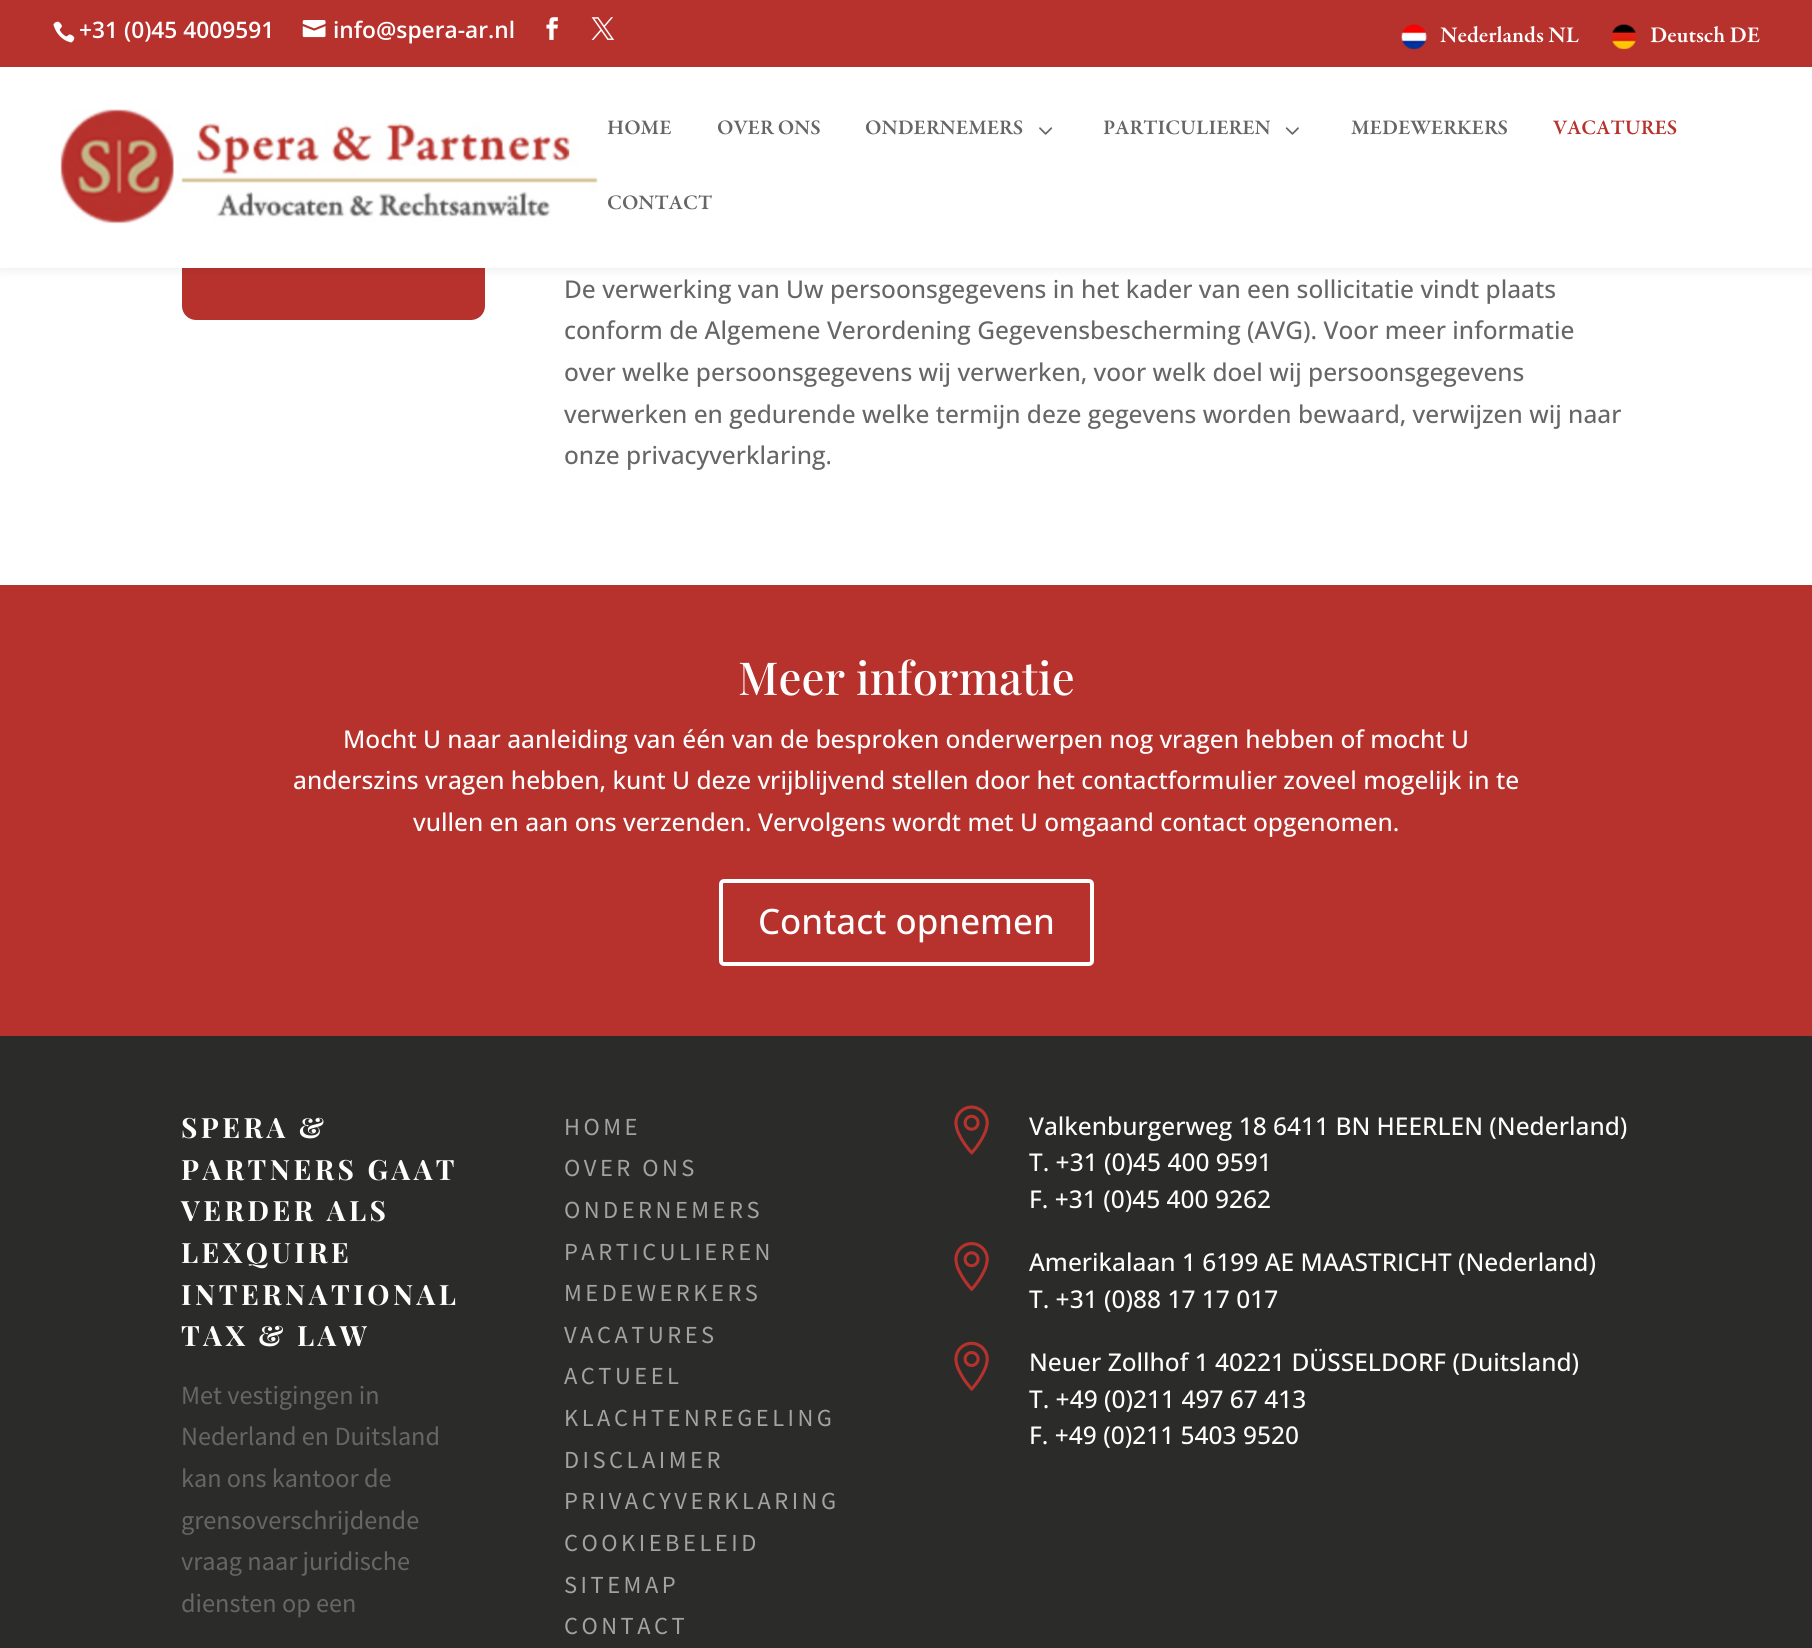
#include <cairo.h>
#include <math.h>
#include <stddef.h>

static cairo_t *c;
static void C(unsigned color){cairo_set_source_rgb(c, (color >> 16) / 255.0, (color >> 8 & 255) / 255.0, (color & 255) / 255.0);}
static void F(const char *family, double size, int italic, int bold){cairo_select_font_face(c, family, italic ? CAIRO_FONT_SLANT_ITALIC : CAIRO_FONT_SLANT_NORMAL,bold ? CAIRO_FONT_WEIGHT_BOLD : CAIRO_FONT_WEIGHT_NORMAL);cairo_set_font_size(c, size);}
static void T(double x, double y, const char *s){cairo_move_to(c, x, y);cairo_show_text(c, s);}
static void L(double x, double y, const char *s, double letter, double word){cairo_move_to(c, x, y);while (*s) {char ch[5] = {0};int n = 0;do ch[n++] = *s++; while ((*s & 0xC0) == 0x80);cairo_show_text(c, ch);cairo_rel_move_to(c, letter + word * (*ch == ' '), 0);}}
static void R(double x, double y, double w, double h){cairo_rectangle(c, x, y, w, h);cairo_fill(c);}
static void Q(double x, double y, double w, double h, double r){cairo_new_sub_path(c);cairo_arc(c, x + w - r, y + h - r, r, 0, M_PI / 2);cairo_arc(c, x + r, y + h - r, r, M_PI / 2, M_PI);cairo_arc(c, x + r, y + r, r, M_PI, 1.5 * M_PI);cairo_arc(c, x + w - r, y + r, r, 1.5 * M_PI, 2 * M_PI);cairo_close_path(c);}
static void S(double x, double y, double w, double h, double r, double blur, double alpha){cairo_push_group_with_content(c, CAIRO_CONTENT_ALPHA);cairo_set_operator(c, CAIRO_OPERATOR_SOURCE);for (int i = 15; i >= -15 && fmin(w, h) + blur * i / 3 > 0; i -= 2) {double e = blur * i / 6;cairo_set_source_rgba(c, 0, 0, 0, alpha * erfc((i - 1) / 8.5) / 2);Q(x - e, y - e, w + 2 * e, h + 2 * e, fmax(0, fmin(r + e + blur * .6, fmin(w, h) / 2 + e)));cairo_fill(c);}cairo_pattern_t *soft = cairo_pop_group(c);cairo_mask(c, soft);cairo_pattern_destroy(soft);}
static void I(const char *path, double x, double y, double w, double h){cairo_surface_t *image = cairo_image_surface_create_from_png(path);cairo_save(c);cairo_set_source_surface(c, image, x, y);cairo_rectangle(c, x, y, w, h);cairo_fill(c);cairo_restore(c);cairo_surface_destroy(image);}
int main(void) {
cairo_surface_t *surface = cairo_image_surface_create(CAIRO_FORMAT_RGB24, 1812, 1648);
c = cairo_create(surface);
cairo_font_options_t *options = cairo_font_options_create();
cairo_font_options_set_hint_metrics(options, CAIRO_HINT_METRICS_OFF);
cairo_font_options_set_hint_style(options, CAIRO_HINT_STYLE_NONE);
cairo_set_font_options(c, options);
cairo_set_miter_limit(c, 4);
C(0xffffff);
cairo_paint(c);
C(0xb7322d);
Q(182,-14,303,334,14);
cairo_fill(c);
C(0x000000);
S(0,67,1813,201,0,6,.1);
C(0xb7322d);
R(0,0,1812,67);
I("1.png",53,21,22,22);
F("Open Sans SemiBold",22.75,0,0);
C(0xffffff);
T(79,38,"+31 (0)45 4009591");
I("2.png",302,20,24,18);
T(333,38,"info@spera-ar.nl");
I("3.png",546,17,12,23);
I("4.png",591,17,24,23);
I("5.png",1401,24,26,26);
F("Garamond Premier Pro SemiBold",22.75,0,0);
T(1440,42,"Nederlands NL");
I("6.png",1611,23,26,27);
T(1650,42,"Deutsch DE");
R(0,67,1812,201);
I("7.png",60,109,538,115);
F("Garamond Premier Pro SemiBold",21,0,0);
C(0x666666);
T(607,134,"HOME");
T(717,134,"OVER ONS");
T(865,134,"ONDERNEMERS");
I("8.png",1039,127,14,8);
T(1103,134,"PARTICULIEREN");
I("9.png",1285,127,14,8);
T(1351,134,"MEDEWERKERS");
C(0xb7322d);
T(1553,134,"VACATURES");
C(0x666666);
T(607,209,"CONTACT");
F("Open Sans Medium",24.5,0,0);
T(564,298,"De verwerking van Uw persoonsgegevens in het kader van een sollicitatie vindt plaats");
T(564,339,"conform de Algemene Verordening Gegevensbescherming (AVG). Voor meer informatie");
T(564,381,"over welke persoonsgegevens wij verwerken, voor welk doel wij persoonsgegevens");
T(564,423,"verwerken en gedurende welke termijn deze gegevens worden bewaard, verwijzen wij naar");
T(564,464,"onze privacyverklaring.");
C(0xb7322d);
R(0,585,1812,451);
F("Playfair Display Medium",45.5,0,0);
C(0xffffff);
T(738,695,"Meer informatie");
F("Open Sans Medium",24.5,0,0);
T(343,748,"Mocht U naar aanleiding van één van de besproken onderwerpen nog vragen hebben of mocht U");
T(293,789,"anderszins vragen hebben, kunt U deze vrijblijvend stellen door het contactformulier zoveel mogelijk in te");
T(413,831,"vullen en aan ons verzenden. Vervolgens wordt met U omgaand contact opgenomen.");
Q(721,881,371,83,3);
cairo_set_line_width(c,4);
cairo_stroke(c);
F("Open Sans Medium",35,0,0);
T(758,934,"Contact opnemen");
C(0x2b2c2a);
R(0,1036,1812,612);
F("Playfair Display",28,0,1);
C(0xffffff);
L(181,1138,"SPERA &",3.5,0);
L(181,1180,"PARTNERS GAAT",3.5,0);
L(181,1221,"VERDER ALS",3.5,0);
L(181,1263,"LEXQUIRE",3.5,0);
L(181,1305,"INTERNATIONAL",3.5,0);
L(181,1346,"TAX & LAW",3.5,0);
F("Source Sans Pro",26.25,0,0);
C(0x666666);
T(181,1404,"Met vestigingen in");
T(181,1445,"Nederland en Duitsland");
T(181,1487,"kan ons kantoor de");
T(181,1529,"grensoverschrijdende");
T(181,1570,"vraag naar juridische");
T(181,1612,"diensten op een");
F("Source Sans Pro",24.5,0,0);
C(0xa3a3a3);
L(564,1135,"HOME",3.5,0);
L(564,1176,"OVER ONS",3.5,0);
L(564,1218,"ONDERNEMERS",3.5,0);
L(564,1260,"PARTICULIEREN",3.5,0);
L(564,1301,"MEDEWERKERS",3.5,0);
L(564,1343,"VACATURES",3.5,0);
L(564,1384,"ACTUEEL",3.5,0);
L(564,1426,"KLACHTENREGELING",3.5,0);
L(564,1468,"DISCLAIMER",3.5,0);
L(564,1509,"PRIVACYVERKLARING",3.5,0);
L(564,1551,"COOKIEBELEID",3.5,0);
L(564,1593,"SITEMAP",3.5,0);
L(564,1634,"CONTACT",3.5,0);
I("10.png",954,1105,35,50);
F("Open Sans Medium",24.5,0,0);
C(0xffffff);
T(1029,1135,"Valkenburgerweg 18 6411 BN HEERLEN (Nederland)");
T(1029,1171,"T. +31 (0)45 400 9591");
T(1029,1208,"F. +31 (0)45 400 9262");
I("11.png",954,1242,35,49);
T(1029,1271,"Amerikalaan 1 6199 AE MAASTRICHT (Nederland)");
T(1029,1308,"T. +31 (0)88 17 17 017");
I("12.png",954,1341,35,50);
T(1029,1371,"Neuer Zollhof 1 40221 DÜSSELDORF (Duitsland)");
T(1029,1408,"T. +49 (0)211 497 67 413");
T(1029,1444,"F. +49 (0)211 5403 9520");
cairo_surface_write_to_png(surface, "o.png");
cairo_font_options_destroy(options);
cairo_destroy(c);
cairo_surface_destroy(surface);
return 0;
}
